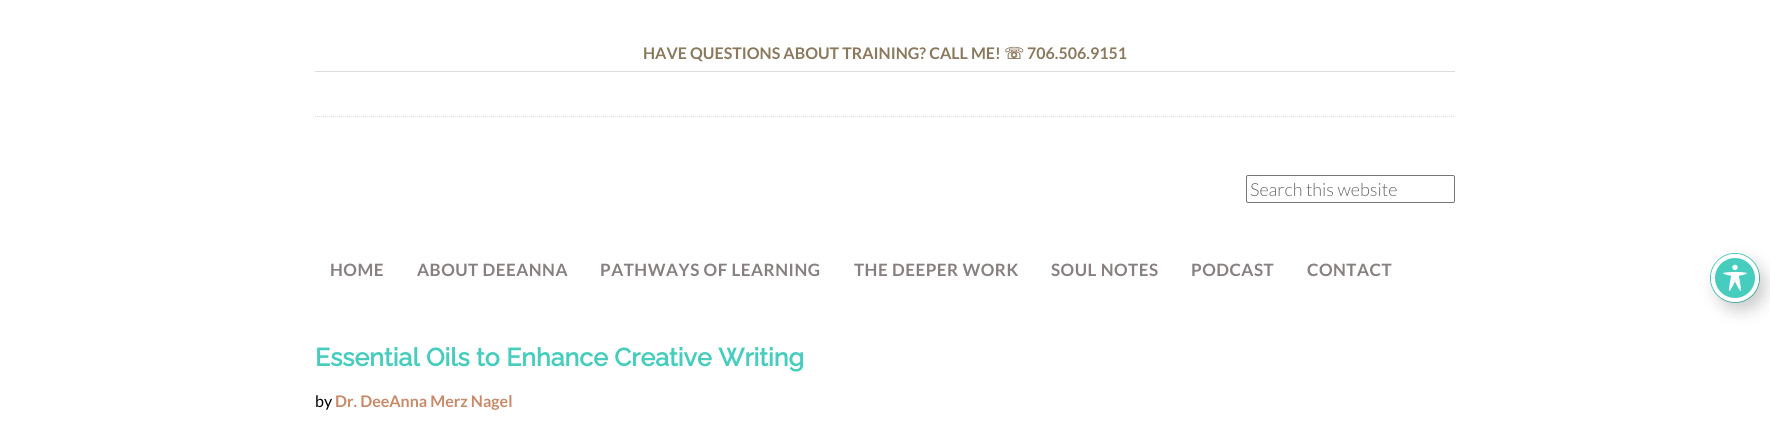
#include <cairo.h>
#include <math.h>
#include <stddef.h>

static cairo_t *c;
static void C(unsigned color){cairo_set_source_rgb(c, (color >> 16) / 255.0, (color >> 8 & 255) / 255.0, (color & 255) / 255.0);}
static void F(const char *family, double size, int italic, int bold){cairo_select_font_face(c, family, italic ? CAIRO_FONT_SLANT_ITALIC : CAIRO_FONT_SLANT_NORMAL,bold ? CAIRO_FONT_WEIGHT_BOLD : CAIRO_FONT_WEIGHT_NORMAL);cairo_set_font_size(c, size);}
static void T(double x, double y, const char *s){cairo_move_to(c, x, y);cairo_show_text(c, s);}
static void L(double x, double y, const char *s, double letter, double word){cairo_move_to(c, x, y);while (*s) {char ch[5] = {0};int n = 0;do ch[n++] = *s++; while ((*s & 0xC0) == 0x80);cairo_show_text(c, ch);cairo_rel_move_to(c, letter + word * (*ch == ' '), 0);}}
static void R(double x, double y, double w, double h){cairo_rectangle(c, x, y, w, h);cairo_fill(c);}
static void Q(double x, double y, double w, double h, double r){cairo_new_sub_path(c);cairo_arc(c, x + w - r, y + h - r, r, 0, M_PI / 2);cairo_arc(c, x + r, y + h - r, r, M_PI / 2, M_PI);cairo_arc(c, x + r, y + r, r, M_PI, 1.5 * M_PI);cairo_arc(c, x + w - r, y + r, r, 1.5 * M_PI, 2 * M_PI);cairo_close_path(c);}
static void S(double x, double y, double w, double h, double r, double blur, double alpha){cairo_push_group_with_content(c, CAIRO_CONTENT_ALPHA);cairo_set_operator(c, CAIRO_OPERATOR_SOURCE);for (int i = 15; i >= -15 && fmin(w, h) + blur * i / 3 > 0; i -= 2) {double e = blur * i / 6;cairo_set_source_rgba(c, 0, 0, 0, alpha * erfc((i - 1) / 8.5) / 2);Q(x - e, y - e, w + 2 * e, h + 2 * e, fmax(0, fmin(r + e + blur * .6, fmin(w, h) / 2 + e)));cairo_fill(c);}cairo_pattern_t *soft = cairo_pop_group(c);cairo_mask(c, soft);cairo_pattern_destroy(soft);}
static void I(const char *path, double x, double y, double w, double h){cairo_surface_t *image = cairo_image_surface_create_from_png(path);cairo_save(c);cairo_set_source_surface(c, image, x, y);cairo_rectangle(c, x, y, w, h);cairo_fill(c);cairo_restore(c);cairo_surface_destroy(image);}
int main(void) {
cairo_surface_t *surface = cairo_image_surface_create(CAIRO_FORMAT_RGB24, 1770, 423);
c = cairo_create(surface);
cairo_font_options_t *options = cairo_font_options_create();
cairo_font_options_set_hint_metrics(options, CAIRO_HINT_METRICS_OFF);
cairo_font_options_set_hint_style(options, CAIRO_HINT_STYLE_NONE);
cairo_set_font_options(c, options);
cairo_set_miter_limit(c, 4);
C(0xffffff);
cairo_paint(c);
cairo_new_path(c);
cairo_move_to(c,315,116.5);
cairo_line_to(c,1455,116.5);
C(0xdddddd);
cairo_set_line_width(c,1);
cairo_set_dash(c,(double[]){1,1},2,0);
cairo_stroke(c);
R(315,71,1140,1);
F("Lato",16,0,1);
C(0x8b795e);
T(643,59,"HAVE QUESTIONS ABOUT TRAINING? CALL ME!");
F("DejaVu Sans",16,0,1);
T(1004,59,"☏");
F("Lato",16,0,1);
T(1027,59,"706.506.9151");
Q(1246.5,175.5,208,27,1.5);
C(0x767676);
cairo_set_dash(c,NULL,0,0);
cairo_stroke(c);
F("Lato Light",18,0,0);
C(0x666666);
T(1250,196,"Search this website");
F("Lato",17,0,1);
C(0x878080);
L(330,276,"HOME",.5,0);
L(417,276,"ABOUT DEEANNA",.5,0);
L(600,276,"PATHWAYS OF LEARNING",.5,0);
L(854,276,"THE DEEPER WORK",.5,0);
L(1051,276,"SOUL NOTES",.5,0);
L(1191,276,"PODCAST",.5,0);
L(1307,276,"CONTACT",.5,0);
F("Raleway",25,0,1);
C(0x47cdbe);
T(315,366,"Essential Oils to Enhance Creative Writing");
F("Lato",16,0,0);
C(0x000000);
T(315,407,"by");
F("Lato",16,0,1);
C(0xca8969);
T(335,407,"Dr. DeeAnna Merz Nagel");
cairo_new_path(c);
cairo_arc(c,1735,278,24.5,0,2 * M_PI);
C(0x46cdbe);
cairo_stroke(c);
C(0x000000);
S(1717,262,48,48,24,8,.2);
C(0x46cdbe);
cairo_arc(c,1735,278,22,0,2 * M_PI);
cairo_fill_preserve(c);
C(0xffffff);
cairo_set_line_width(c,4);
cairo_stroke(c);
I("1.png",1723,264,24,27);
cairo_surface_write_to_png(surface, "o.png");
cairo_font_options_destroy(options);
cairo_destroy(c);
cairo_surface_destroy(surface);
return 0;
}
